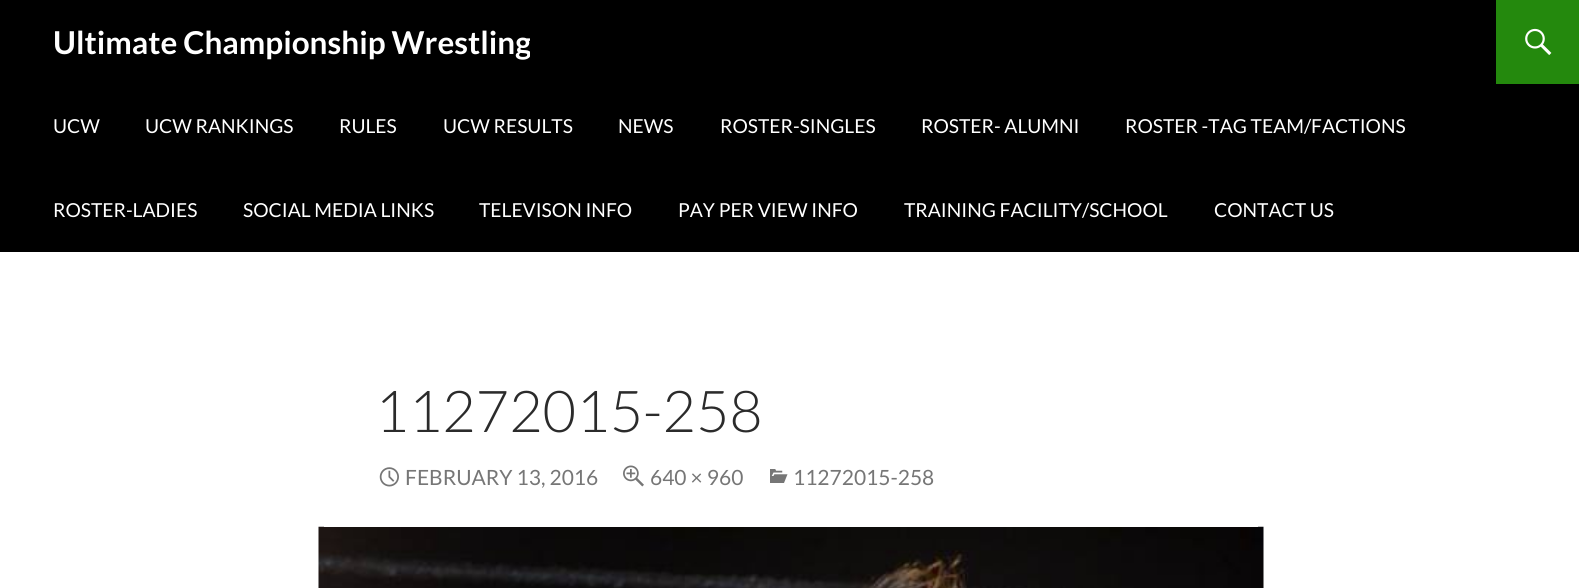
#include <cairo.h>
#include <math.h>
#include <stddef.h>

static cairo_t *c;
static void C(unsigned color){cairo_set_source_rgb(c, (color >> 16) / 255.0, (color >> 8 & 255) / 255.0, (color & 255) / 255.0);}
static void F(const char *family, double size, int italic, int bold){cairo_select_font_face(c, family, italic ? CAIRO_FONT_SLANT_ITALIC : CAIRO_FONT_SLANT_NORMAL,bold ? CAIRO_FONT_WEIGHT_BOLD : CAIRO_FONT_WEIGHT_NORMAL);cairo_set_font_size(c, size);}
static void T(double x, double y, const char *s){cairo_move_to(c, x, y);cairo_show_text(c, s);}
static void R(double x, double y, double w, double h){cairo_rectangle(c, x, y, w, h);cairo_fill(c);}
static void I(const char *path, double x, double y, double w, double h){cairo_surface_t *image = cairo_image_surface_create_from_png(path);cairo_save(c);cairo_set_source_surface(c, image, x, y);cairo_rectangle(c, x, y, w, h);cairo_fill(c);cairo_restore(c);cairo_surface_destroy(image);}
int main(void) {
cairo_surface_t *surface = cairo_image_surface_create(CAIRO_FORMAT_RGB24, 1579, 588);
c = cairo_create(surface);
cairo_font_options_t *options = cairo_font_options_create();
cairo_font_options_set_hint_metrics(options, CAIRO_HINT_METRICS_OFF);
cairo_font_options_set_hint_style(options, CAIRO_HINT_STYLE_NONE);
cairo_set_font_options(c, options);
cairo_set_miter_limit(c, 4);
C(0xffffff);
cairo_paint(c);
C(0x000000);
R(0,0,1579,252);
cairo_save(c);
cairo_rectangle(c,53,0,477,84);
cairo_clip(c);
F("Lato",31.5,0,1);
C(0xffffff);
T(53,54,"Ultimate Championship Wrestling");
cairo_restore(c);
C(0x24890d);
R(1496,0,83,84);
I("1.png",1525,28,27,27);
F("Lato",19.25,0,0);
C(0xffffff);
T(53,133,"UCW");
T(145,133,"UCW RANKINGS");
T(339,133,"RULES");
T(443,133,"UCW RESULTS");
T(618,133,"NEWS");
T(720,133,"ROSTER-SINGLES");
T(921,133,"ROSTER- ALUMNI");
T(1125,133,"ROSTER -TAG TEAM/FACTIONS");
T(53,217,"ROSTER-LADIES");
T(243,217,"SOCIAL MEDIA LINKS");
T(479,217,"TELEVISON INFO");
T(678,217,"PAY PER VIEW INFO");
T(904,217,"TRAINING FACILITY/SCHOOL");
T(1214,217,"CONTACT US");
I("5.png",318,526,946,62);
R(324,526,934,1);
F("Lato Light",57.75,0,0);
C(0x2b2b2b);
T(375,432,"11272015-258");
I("2.png",379,467,20,20);
F("Lato",21,0,0);
C(0x767676);
T(405,485,"FEBRUARY 13, 2016");
I("3.png",623,465,21,22);
T(650,485,"640 × 960");
I("4.png",770,469,18,14);
T(793,485,"11272015-258");
cairo_surface_write_to_png(surface, "o.png");
cairo_font_options_destroy(options);
cairo_destroy(c);
cairo_surface_destroy(surface);
return 0;
}
